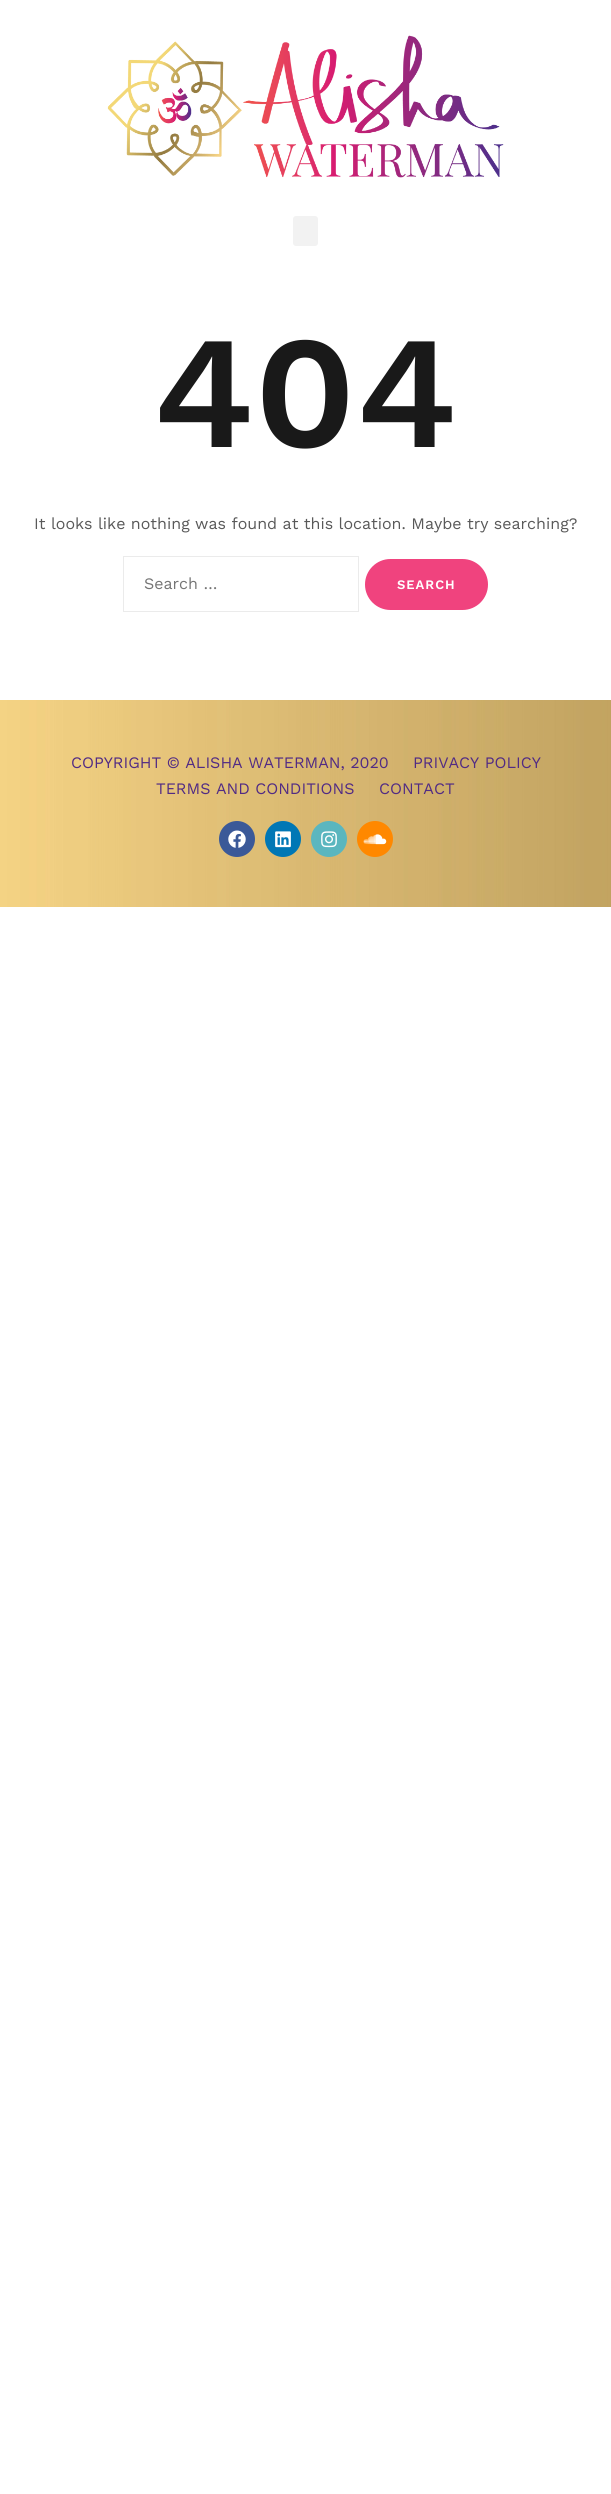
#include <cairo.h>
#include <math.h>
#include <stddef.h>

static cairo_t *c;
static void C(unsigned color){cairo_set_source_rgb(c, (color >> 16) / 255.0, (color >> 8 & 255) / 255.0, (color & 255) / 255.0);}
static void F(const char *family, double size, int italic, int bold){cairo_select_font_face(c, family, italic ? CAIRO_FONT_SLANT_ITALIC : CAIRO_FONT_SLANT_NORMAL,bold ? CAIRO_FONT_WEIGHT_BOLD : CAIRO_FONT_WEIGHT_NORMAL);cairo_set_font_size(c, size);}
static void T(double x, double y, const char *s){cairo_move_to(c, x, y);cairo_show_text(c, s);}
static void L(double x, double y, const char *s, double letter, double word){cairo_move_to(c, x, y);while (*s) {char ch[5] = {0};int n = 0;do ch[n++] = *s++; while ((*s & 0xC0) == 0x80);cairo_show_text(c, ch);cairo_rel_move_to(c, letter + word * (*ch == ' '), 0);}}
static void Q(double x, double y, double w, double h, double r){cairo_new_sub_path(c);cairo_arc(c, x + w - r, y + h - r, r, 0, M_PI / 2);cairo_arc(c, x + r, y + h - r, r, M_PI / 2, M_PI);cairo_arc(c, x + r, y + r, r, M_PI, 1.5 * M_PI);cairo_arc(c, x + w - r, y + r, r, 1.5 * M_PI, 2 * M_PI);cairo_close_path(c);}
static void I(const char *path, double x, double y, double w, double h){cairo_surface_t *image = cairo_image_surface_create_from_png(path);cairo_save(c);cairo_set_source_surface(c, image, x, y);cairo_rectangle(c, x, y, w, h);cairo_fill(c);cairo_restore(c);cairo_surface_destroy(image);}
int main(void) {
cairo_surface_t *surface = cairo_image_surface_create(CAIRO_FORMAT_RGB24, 611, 2494);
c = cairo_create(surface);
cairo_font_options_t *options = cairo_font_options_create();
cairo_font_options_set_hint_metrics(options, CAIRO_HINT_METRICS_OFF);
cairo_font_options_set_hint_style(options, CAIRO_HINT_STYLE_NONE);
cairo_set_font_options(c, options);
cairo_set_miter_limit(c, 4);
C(0xffffff);
cairo_paint(c);
I("1.png",107,35,397,143);
C(0xf2f2f2);
Q(293,216,25,30,3);
cairo_fill(c);
F("Work Sans SemiBold",160,0,0);
C(0x191919);
T(153,447,"404");
F("Work Sans",16,0,0);
C(0x595959);
T(34,529,"It looks like nothing was found at this location. Maybe try searching?");
cairo_rectangle(c,123.5,556.5,235,55);
C(0xebebeb);
cairo_set_line_width(c,1);
cairo_stroke(c);
C(0x757575);
T(144,589,"Search …");
C(0xf0437e);
Q(366,560,121,49,24.5);
cairo_fill_preserve(c);
cairo_set_line_width(c,2);
cairo_stroke(c);
F("Work Sans SemiBold",13,0,0);
C(0xffffff);
L(397,589,"SEARCH",1,0);
I("2.png",0,700,611,207);
F("Work Sans",16,0,0);
C(0x512b84);
T(71,768,"COPYRIGHT © ALISHA WATERMAN, 2020");
T(413,768,"PRIVACY POLICY");
T(156,794,"TERMS AND CONDITIONS");
T(379,794,"CONTACT");
C(0x3b5998);
cairo_new_path(c);
cairo_arc(c,237,839,18,0,2 * M_PI);
cairo_fill(c);
I("3.png",228,830,18,18);
C(0x0077b5);
cairo_arc(c,283,839,18,0,2 * M_PI);
cairo_fill(c);
I("4.png",275,831,16,17);
cairo_set_source_rgba(c,0.22,0.714,0.835,0.78);
cairo_arc(c,329,839,18,0,2 * M_PI);
cairo_fill(c);
I("5.png",321,831,16,17);
C(0xff8800);
cairo_arc(c,375,839,18,0,2 * M_PI);
cairo_fill(c);
I("6.png",363,834,24,11);
cairo_surface_write_to_png(surface, "o.png");
cairo_font_options_destroy(options);
cairo_destroy(c);
cairo_surface_destroy(surface);
return 0;
}
